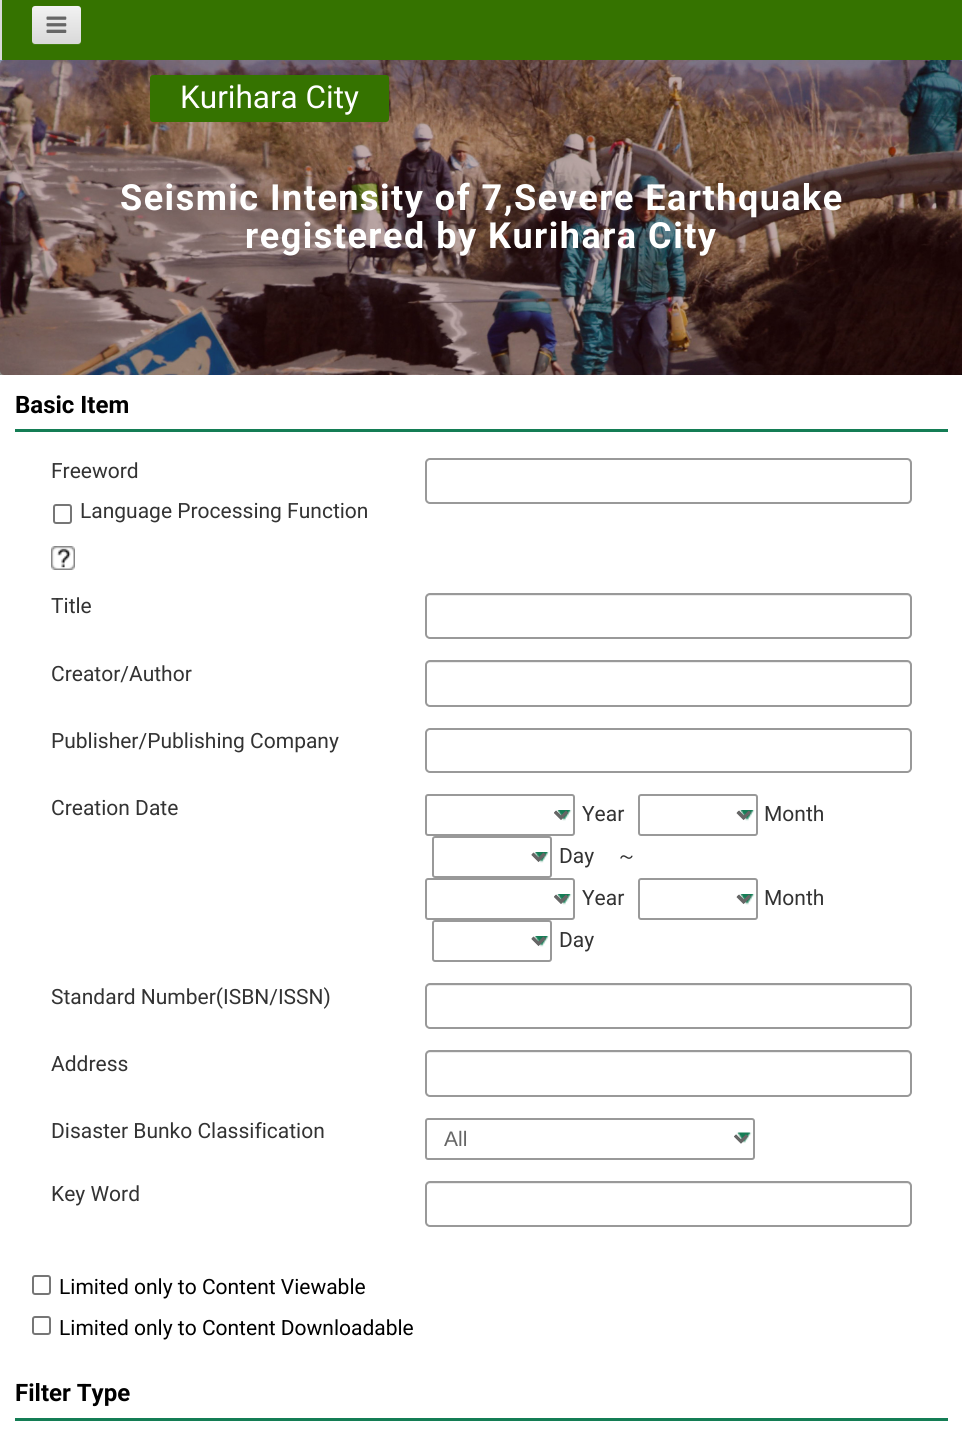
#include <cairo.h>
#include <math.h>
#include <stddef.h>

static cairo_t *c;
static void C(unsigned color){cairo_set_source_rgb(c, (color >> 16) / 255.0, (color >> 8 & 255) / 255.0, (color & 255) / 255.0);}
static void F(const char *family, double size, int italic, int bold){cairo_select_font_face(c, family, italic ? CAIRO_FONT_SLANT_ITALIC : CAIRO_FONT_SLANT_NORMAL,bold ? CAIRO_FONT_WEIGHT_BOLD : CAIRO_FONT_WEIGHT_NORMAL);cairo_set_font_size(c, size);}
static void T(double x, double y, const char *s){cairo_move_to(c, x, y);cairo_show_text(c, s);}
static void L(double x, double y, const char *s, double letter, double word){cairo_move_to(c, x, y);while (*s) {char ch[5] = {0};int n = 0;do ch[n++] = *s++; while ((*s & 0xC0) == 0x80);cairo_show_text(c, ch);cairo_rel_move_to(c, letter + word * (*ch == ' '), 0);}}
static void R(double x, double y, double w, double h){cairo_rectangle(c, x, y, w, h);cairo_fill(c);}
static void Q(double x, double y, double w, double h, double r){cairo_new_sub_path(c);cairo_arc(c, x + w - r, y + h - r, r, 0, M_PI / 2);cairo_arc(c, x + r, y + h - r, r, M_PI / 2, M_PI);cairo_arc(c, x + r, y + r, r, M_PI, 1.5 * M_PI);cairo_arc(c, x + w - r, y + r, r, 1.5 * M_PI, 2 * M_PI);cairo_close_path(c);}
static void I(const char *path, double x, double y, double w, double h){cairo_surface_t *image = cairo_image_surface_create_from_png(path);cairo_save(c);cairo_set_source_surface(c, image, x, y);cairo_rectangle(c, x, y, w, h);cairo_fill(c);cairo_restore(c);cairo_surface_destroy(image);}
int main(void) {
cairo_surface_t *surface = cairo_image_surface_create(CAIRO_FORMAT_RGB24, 962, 1435);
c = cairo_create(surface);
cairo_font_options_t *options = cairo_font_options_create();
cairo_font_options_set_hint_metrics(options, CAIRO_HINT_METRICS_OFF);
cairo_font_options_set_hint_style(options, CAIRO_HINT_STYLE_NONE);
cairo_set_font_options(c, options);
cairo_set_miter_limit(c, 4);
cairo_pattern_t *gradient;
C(0xffffff);
cairo_paint(c);
C(0x357300);
R(2,0,960,60);
C(0xd9d9d9);
R(0,0,2,60);
C(0x447e13);
cairo_new_path(c);
cairo_move_to(c,32,42);
cairo_curve_to(c,32,44,33,45,35,45);
cairo_line_to(c,78,45);
cairo_curve_to(c,80,45,81,44,81,42);
cairo_line_to(c,81,40);
cairo_curve_to(c,81,42,80,44,78,44);
cairo_line_to(c,34,44);
cairo_curve_to(c,33,44,33,43,32,42);
cairo_close_path(c);
cairo_fill(c);
gradient = cairo_pattern_create_linear(56,6,56,44);
cairo_pattern_add_color_stop_rgba(gradient,0,0.949,0.949,0.949,1);
cairo_pattern_add_color_stop_rgba(gradient,1,0.851,0.851,0.851,1);
cairo_set_source(c,gradient);
cairo_pattern_destroy(gradient);
Q(32,6,49,38,3);
cairo_fill(c);
cairo_set_source_rgba(c,1,1,1,0.1);
cairo_new_path(c);
cairo_move_to(c,34,8);
cairo_line_to(c,78,8);
cairo_curve_to(c,80,8,81,9,81,10);
cairo_curve_to(c,81,4,75,6,71,6);
cairo_line_to(c,42,6);
cairo_curve_to(c,38,6,32,4,32,10);
cairo_curve_to(c,32,9,33,8,34,8);
cairo_close_path(c);
cairo_fill(c);
I("1.png",46,16,21,17);
I("2.png",0,60,962,315);
I("3.png",0,60,962,315);
C(0x357300);
Q(150,75,239,47,3);
cairo_fill(c);
F("Roboto",31.5,0,0);
C(0xffffff);
T(180,108,"Kurihara City");
F("Roboto",36,0,1);
L(120,210,"Seismic Intensity of 7,Severe Earthquake",1.5,0);
L(245,248,"registered by Kurihara City",1.5,0);
C(0x147d55);
R(15,429,933,3);
F("Roboto",24,0,1);
C(0x000000);
T(15,413,"Basic Item");
F("Roboto",21,0,0);
C(0x333333);
T(51,478,"Freeword");
Q(54,505,17,18,2);
C(0x767676);
cairo_stroke(c);
C(0x333333);
T(80,518,"Language Processing Function");
I("4.png",51,546,24,24);
C(0xececec);
cairo_new_path(c);
cairo_move_to(c,429,460);
cairo_line_to(c,908,460);
cairo_curve_to(c,911,460,910,475,910,476);
cairo_line_to(c,910,502);
cairo_curve_to(c,911,502,911,501,911,500);
cairo_line_to(c,911,462);
cairo_curve_to(c,911,460,910,459,908,459);
cairo_line_to(c,429,459);
cairo_curve_to(c,427,459,426,460,426,462);
cairo_line_to(c,426,464);
cairo_curve_to(c,426,462,427,460,429,460);
cairo_close_path(c);
cairo_fill(c);
Q(426,459,485,44,4);
C(0x999999);
cairo_stroke(c);
C(0x333333);
T(51,613,"Title");
C(0xececec);
cairo_new_path(c);
cairo_move_to(c,429,596);
cairo_line_to(c,908,596);
cairo_curve_to(c,909,596,910,597,910,598);
cairo_line_to(c,910,637);
cairo_curve_to(c,911,637,911,636,911,635);
cairo_line_to(c,911,597);
cairo_curve_to(c,911,595,910,594,908,594);
cairo_line_to(c,429,594);
cairo_curve_to(c,427,594,426,595,426,597);
cairo_line_to(c,426,598);
cairo_curve_to(c,426,597,427,596,429,596);
cairo_close_path(c);
cairo_fill(c);
Q(426,594,485,44,4);
C(0x999999);
cairo_stroke(c);
C(0x333333);
T(51,681,"Creator/Author");
C(0xececec);
cairo_new_path(c);
cairo_move_to(c,429,663);
cairo_line_to(c,908,663);
cairo_curve_to(c,909,663,910,664,910,666);
cairo_line_to(c,910,704);
cairo_curve_to(c,911,704,911,703,911,702);
cairo_line_to(c,911,665);
cairo_curve_to(c,911,663,910,662,908,662);
cairo_line_to(c,429,662);
cairo_curve_to(c,427,662,426,663,426,665);
cairo_line_to(c,426,666);
cairo_curve_to(c,426,664,427,663,429,663);
cairo_close_path(c);
cairo_fill(c);
Q(426,661,485,45,4);
C(0x999999);
cairo_stroke(c);
C(0x333333);
T(51,748,"Publisher/Publishing Company");
C(0xececec);
cairo_new_path(c);
cairo_move_to(c,429,730);
cairo_line_to(c,908,730);
cairo_curve_to(c,911,730,910,745,910,746);
cairo_line_to(c,910,770);
cairo_curve_to(c,911,770,911,769,911,768);
cairo_line_to(c,911,732);
cairo_curve_to(c,911,730,910,729,908,729);
cairo_line_to(c,429,729);
cairo_curve_to(c,427,729,426,730,426,732);
cairo_line_to(c,426,734);
cairo_curve_to(c,426,732,427,730,429,730);
cairo_close_path(c);
cairo_fill(c);
Q(426,729,485,43,4);
C(0x999999);
cairo_stroke(c);
C(0x333333);
T(51,815,"Creation Date");
I("5.png",554,810,18,11);
Q(426,795,148,40,2);
C(0x999999);
cairo_stroke(c);
cairo_new_path(c);
cairo_move_to(c,555,812);
cairo_line_to(c,561,818);
cairo_line_to(c,567,812);
C(0x666666);
cairo_set_line_width(c,3);
cairo_stroke(c);
C(0x333333);
T(582,821,"Year");
I("5.png",737,810,18,11);
Q(639,795,118,40,2);
C(0x999999);
cairo_set_line_width(c,2);
cairo_stroke(c);
cairo_new_path(c);
cairo_move_to(c,737.5,812);
cairo_line_to(c,743.5,818);
cairo_line_to(c,749.5,812);
C(0x666666);
cairo_set_line_width(c,3);
cairo_stroke(c);
C(0x333333);
T(764,821,"Month");
I("6.png",531,852,18,11);
Q(433,837,118,40,2);
C(0x999999);
cairo_set_line_width(c,2);
cairo_stroke(c);
cairo_new_path(c);
cairo_move_to(c,532.5,854);
cairo_line_to(c,538.5,860);
cairo_line_to(c,544.5,854);
C(0x666666);
cairo_set_line_width(c,3);
cairo_stroke(c);
C(0x333333);
T(559,863,"Day");
F("WenQuanYi Zen Hei Medium",21,0,0);
T(616,863,"～");
I("5.png",554,894,18,11);
Q(426,879,148,40,2);
C(0x999999);
cairo_set_line_width(c,2);
cairo_stroke(c);
cairo_new_path(c);
cairo_move_to(c,555,896);
cairo_line_to(c,561,902);
cairo_line_to(c,567,896);
C(0x666666);
cairo_set_line_width(c,3);
cairo_stroke(c);
F("Roboto",21,0,0);
C(0x333333);
T(582,905,"Year");
I("5.png",737,894,18,11);
Q(639,879,118,40,2);
C(0x999999);
cairo_set_line_width(c,2);
cairo_stroke(c);
cairo_new_path(c);
cairo_move_to(c,737.5,896);
cairo_line_to(c,743.5,902);
cairo_line_to(c,749.5,896);
C(0x666666);
cairo_set_line_width(c,3);
cairo_stroke(c);
C(0x333333);
T(764,905,"Month");
I("6.png",531,936,18,11);
Q(433,921,118,40,2);
C(0x999999);
cairo_set_line_width(c,2);
cairo_stroke(c);
cairo_new_path(c);
cairo_move_to(c,532.5,938);
cairo_line_to(c,538.5,944);
cairo_line_to(c,544.5,938);
C(0x666666);
cairo_set_line_width(c,3);
cairo_stroke(c);
C(0x333333);
T(559,947,"Day");
T(51,1004,"Standard Number(ISBN/ISSN)");
C(0xececec);
cairo_new_path(c);
cairo_move_to(c,429,986);
cairo_line_to(c,908,986);
cairo_curve_to(c,909,986,910,987,910,988);
cairo_line_to(c,910,1027);
cairo_curve_to(c,911,1027,911,1026,911,1025);
cairo_line_to(c,911,987);
cairo_curve_to(c,911,985,910,984,908,984);
cairo_line_to(c,429,984);
cairo_curve_to(c,427,984,426,985,426,987);
cairo_line_to(c,426,988);
cairo_curve_to(c,426,987,427,986,429,986);
cairo_close_path(c);
cairo_fill(c);
Q(426,984,485,44,4);
C(0x999999);
cairo_set_line_width(c,2);
cairo_stroke(c);
C(0x333333);
T(51,1071,"Address");
C(0xececec);
cairo_new_path(c);
cairo_move_to(c,429,1053);
cairo_line_to(c,908,1053);
cairo_curve_to(c,909,1053,910,1054,910,1056);
cairo_line_to(c,910,1094);
cairo_curve_to(c,911,1094,911,1093,911,1092);
cairo_line_to(c,911,1055);
cairo_curve_to(c,911,1053,910,1052,908,1052);
cairo_line_to(c,429,1052);
cairo_curve_to(c,427,1052,426,1053,426,1055);
cairo_line_to(c,426,1056);
cairo_curve_to(c,426,1054,427,1053,429,1053);
cairo_close_path(c);
cairo_fill(c);
Q(426,1051,485,45,4);
C(0x999999);
cairo_stroke(c);
C(0x333333);
T(51,1138,"Disaster Bunko Classification");
I("7.png",734,1132,18,12);
Q(426,1119,328,40,2);
C(0x999999);
cairo_stroke(c);
cairo_new_path(c);
cairo_move_to(c,735,1135.5);
cairo_line_to(c,741,1141.5);
cairo_line_to(c,747,1135.5);
C(0x666666);
cairo_set_line_width(c,3);
cairo_stroke(c);
F("Liberation Sans",21,0,0);
T(444,1146,"All");
F("Roboto",21,0,0);
C(0x333333);
T(51,1201,"Key Word");
C(0xececec);
cairo_new_path(c);
cairo_move_to(c,429,1184);
cairo_line_to(c,908,1184);
cairo_curve_to(c,909,1184,910,1185,910,1186);
cairo_line_to(c,910,1225);
cairo_curve_to(c,911,1225,911,1224,911,1223);
cairo_line_to(c,911,1185);
cairo_curve_to(c,911,1183,910,1182,908,1182);
cairo_line_to(c,429,1182);
cairo_curve_to(c,427,1182,426,1183,426,1185);
cairo_line_to(c,426,1186);
cairo_curve_to(c,426,1185,427,1184,429,1184);
cairo_close_path(c);
cairo_fill(c);
Q(426,1182,485,44,4);
C(0x999999);
cairo_set_line_width(c,2);
cairo_stroke(c);
Q(33,1276,17,18,2);
C(0x767676);
cairo_stroke(c);
C(0x000000);
T(59,1294,"Limited only to Content Viewable");
Q(33,1317,17,17,2);
C(0x767676);
cairo_stroke(c);
C(0x000000);
T(59,1335,"Limited only to Content Downloadable");
C(0x147d55);
R(15,1418,933,3);
F("Roboto",24,0,1);
C(0x000000);
T(15,1401,"Filter Type");
cairo_surface_write_to_png(surface, "o.png");
cairo_font_options_destroy(options);
cairo_destroy(c);
cairo_surface_destroy(surface);
return 0;
}
